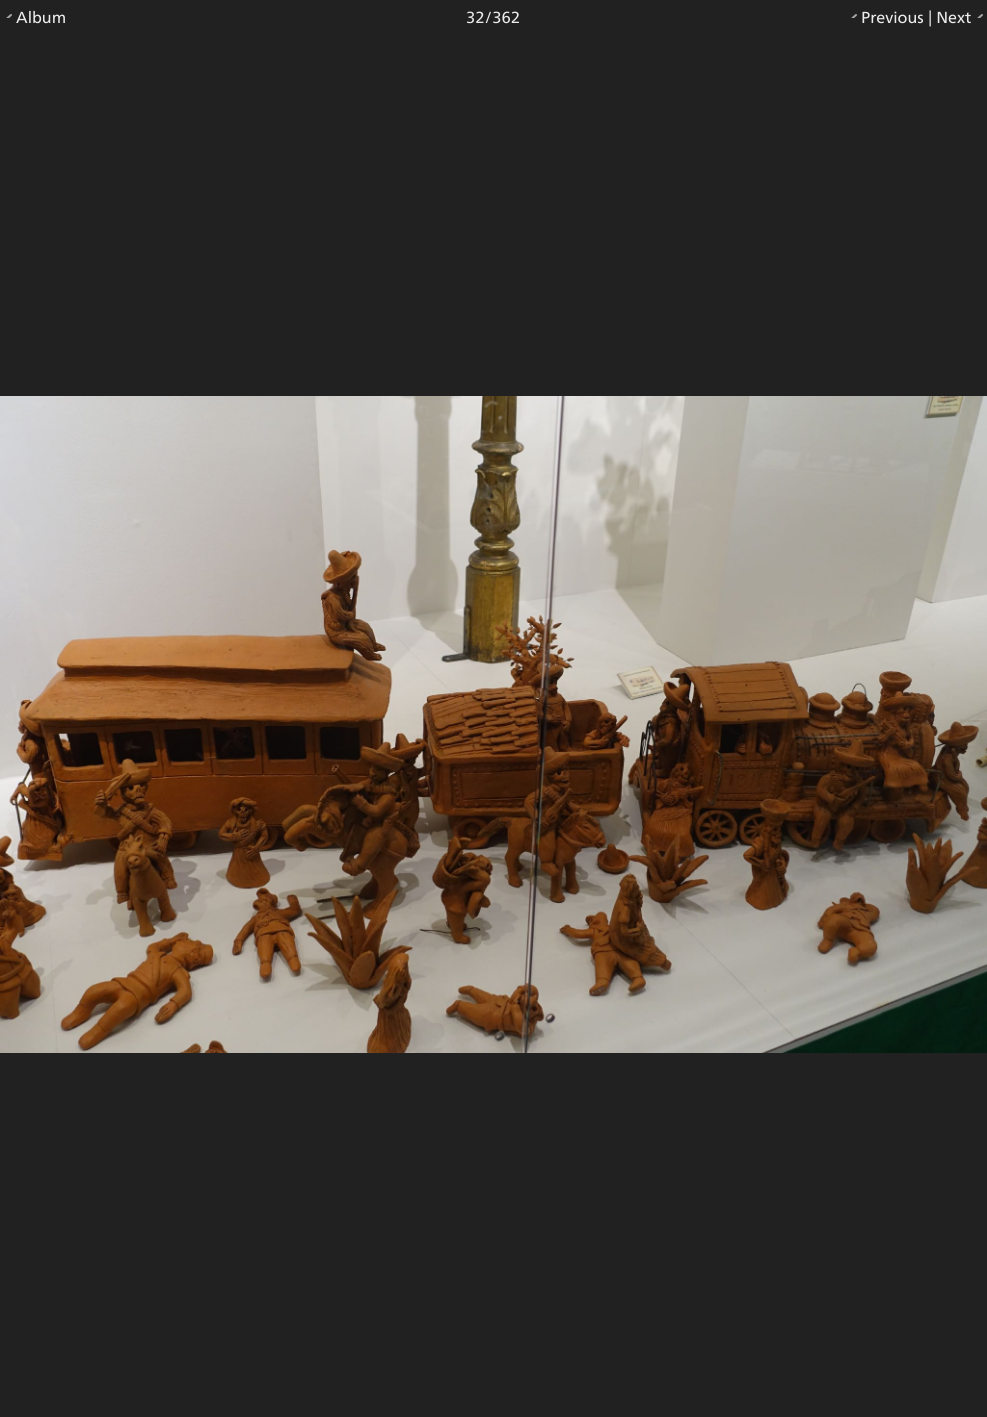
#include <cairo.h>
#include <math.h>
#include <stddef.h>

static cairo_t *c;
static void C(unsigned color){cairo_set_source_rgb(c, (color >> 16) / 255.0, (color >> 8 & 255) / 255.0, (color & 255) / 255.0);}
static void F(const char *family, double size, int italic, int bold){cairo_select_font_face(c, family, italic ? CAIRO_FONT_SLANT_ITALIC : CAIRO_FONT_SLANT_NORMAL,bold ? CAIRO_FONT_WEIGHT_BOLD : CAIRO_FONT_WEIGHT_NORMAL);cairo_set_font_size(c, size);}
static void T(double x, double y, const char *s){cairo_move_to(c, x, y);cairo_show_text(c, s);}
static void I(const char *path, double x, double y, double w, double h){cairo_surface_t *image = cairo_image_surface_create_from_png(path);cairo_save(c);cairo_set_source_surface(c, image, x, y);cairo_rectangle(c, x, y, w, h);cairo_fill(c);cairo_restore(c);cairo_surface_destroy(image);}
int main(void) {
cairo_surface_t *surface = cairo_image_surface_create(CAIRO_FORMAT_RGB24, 987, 1417);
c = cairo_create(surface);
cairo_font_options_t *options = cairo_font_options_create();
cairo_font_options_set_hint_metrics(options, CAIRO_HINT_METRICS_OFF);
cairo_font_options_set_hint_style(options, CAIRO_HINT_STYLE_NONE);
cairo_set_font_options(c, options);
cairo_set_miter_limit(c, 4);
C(0x212121);
cairo_paint(c);
I("1.png",6,14,6,4);
F("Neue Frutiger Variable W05",16,0,0);
C(0xececec);
T(16,23,"Album");
T(466,23,"32/362");
I("1.png",851,14,6,4);
T(861,23,"Previous");
T(928,23,"| Next");
I("1.png",977,14,6,4);
I("2.png",0,396,987,657);
cairo_surface_write_to_png(surface, "o.png");
cairo_font_options_destroy(options);
cairo_destroy(c);
cairo_surface_destroy(surface);
return 0;
}
